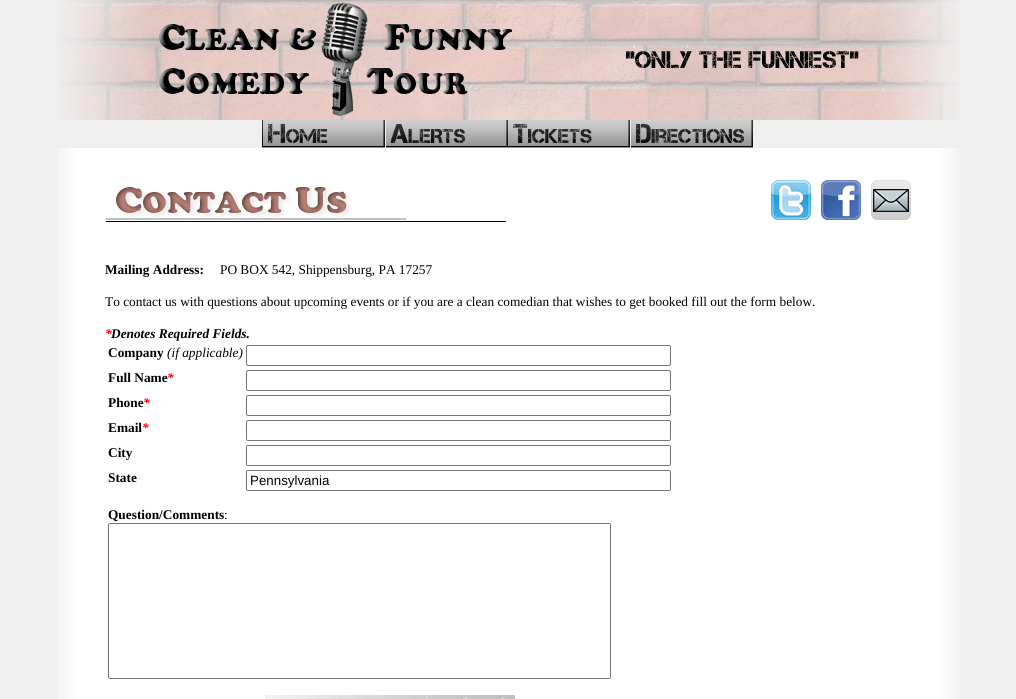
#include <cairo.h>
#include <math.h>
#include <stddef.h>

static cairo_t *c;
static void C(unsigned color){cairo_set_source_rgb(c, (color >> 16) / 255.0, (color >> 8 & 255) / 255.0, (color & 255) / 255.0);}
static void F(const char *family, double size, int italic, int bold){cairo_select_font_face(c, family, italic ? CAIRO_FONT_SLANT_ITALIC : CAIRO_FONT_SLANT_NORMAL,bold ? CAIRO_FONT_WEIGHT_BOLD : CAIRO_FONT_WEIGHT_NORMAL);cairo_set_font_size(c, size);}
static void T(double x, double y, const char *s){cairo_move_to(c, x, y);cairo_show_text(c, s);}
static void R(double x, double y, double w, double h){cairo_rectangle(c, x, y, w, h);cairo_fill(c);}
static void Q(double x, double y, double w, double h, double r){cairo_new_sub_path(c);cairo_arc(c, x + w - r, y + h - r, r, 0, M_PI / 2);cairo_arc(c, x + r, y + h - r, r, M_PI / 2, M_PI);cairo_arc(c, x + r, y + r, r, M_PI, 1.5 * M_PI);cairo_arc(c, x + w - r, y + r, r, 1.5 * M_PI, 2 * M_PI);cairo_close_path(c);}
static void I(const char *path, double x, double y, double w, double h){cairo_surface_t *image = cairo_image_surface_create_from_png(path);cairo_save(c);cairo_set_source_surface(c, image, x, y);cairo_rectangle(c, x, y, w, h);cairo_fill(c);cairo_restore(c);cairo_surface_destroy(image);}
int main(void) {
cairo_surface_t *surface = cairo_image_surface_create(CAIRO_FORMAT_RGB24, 1016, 699);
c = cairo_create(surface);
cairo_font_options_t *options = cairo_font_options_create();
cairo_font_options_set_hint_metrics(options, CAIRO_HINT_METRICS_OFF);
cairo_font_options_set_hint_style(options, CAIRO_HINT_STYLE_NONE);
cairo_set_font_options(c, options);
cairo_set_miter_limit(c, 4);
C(0xefefef);
cairo_paint(c);
I("1.png",59,0,901,120);
I("2.png",262,120,123,28);
I("3.png",386,120,122,28);
I("4.png",508,120,122,28);
I("5.png",631,120,122,28);
I("6.png",57,148,28,551);
C(0xffffff);
R(85,148,846,551);
I("7.png",931,148,29,551);
I("8.png",106,187,400,35);
I("9.png",771,180,40,40);
I("10.png",821,180,40,40);
I("11.png",871,180,40,40);
F("Liberation Serif",13.33,0,1);
C(0x000000);
T(105,274,"Mailing Address:");
F("Liberation Serif",13.33,0,0);
T(220,274,"PO BOX 542, Shippensburg, PA 17257");
T(105,306,"To contact us with questions about upcoming events or if you are a clean comedian that wishes to get booked fill out the form below.");
F("Liberation Serif",13.33,1,1);
C(0xff0000);
T(105,338,"*");
C(0x000000);
T(111,338,"Denotes Required Fields.");
F("Liberation Serif",13.33,0,1);
T(108,357,"Company");
F("Liberation Serif",13.33,1,0);
T(167,357,"(if applicable)");
Q(246.5,345.5,424,20,1.5);
C(0x767676);
cairo_set_line_width(c,1);
cairo_stroke(c);
F("Liberation Serif",13.33,0,1);
C(0x000000);
T(108,382,"Full Name");
F("Liberation Serif",13.33,1,1);
C(0xff0000);
T(167,382,"*");
Q(246.5,370.5,424,20,1.5);
C(0x767676);
cairo_stroke(c);
F("Liberation Serif",13.33,0,1);
C(0x000000);
T(108,407,"Phone");
F("Liberation Serif",13.33,1,1);
C(0xff0000);
T(143,407,"*");
Q(246.5,395.5,424,20,1.5);
C(0x767676);
cairo_stroke(c);
F("Liberation Serif",13.33,0,1);
C(0x000000);
T(108,432,"Email");
F("Liberation Serif",13.33,1,1);
C(0xff0000);
T(142,432,"*");
Q(246.5,420.5,424,20,1.5);
C(0x767676);
cairo_stroke(c);
F("Liberation Serif",13.33,0,1);
C(0x000000);
T(108,457,"City");
Q(246.5,445.5,424,20,1.5);
C(0x767676);
cairo_stroke(c);
C(0x000000);
T(108,482,"State");
Q(246.5,470.5,424,20,1.5);
C(0x767676);
cairo_stroke(c);
F("Liberation Sans",13.33,0,0);
C(0x000000);
T(250,485,"Pennsylvania");
F("Liberation Serif",13.33,0,1);
T(108,519,"Question/Comments");
F("Liberation Serif",13.33,0,0);
T(224,519,":");
Q(108.5,523.5,502,155,1.5);
C(0x767676);
cairo_stroke(c);
I("12.png",265,695,250,4);
cairo_surface_write_to_png(surface, "o.png");
cairo_font_options_destroy(options);
cairo_destroy(c);
cairo_surface_destroy(surface);
return 0;
}
